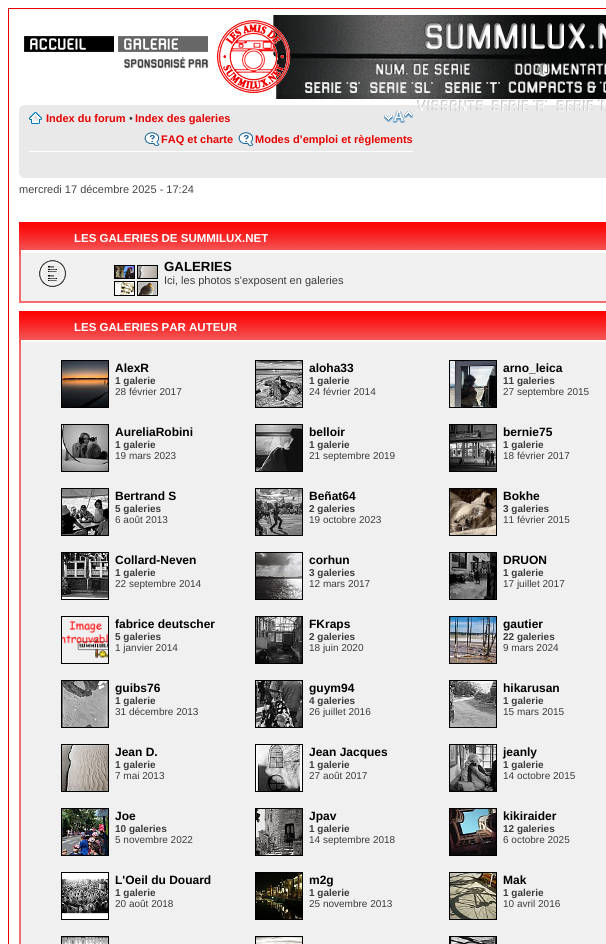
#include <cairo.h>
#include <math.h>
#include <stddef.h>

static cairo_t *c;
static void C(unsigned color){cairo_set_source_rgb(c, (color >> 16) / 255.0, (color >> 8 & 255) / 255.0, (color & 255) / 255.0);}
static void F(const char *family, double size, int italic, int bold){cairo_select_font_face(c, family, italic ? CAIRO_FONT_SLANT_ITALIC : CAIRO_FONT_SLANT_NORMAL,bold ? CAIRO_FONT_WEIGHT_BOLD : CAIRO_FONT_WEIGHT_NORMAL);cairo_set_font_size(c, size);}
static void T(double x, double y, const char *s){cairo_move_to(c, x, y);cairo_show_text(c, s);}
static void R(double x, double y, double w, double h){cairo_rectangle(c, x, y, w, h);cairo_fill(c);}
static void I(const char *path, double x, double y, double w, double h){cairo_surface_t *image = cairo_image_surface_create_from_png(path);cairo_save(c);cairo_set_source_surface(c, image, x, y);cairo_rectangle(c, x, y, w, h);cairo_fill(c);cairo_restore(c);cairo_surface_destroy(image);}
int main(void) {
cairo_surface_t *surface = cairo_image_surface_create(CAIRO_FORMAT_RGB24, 606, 944);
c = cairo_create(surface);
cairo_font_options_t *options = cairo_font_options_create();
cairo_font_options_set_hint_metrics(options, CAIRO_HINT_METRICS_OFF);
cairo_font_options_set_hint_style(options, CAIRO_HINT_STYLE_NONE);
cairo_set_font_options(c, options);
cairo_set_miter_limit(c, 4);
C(0xffffff);
cairo_paint(c);
cairo_rectangle(c,8.5,8.5,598,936);
C(0xe70000);
cairo_set_line_width(c,1);
cairo_stroke(c);
I("1.png",24,36,90,16);
I("2.png",118,36,90,16);
I("5.png",273,15,333,84);
I("3.png",216,20,75,74);
I("4.png",124,57,85,12);
I("6.png",424,22,182,27);
I("7.png",375,62,96,13);
I("8.png",514,63,92,12);
I("9.png",305,82,55,11);
I("10.png",370,82,63,11);
I("11.png",445,82,55,11);
I("12.png",508,81,98,12);
C(0xe9e9e9);
R(19,105,587,73);
I("13.png",416,100,68,11);
I("14.png",491,100,57,11);
I("15.png",556,99,50,12);
I("16.png",19,105,5,5);
C(0xffffff);
R(29,151,384,1);
I("17.png",29,112,13,12);
F("Liberation Sans",11,0,1);
C(0xe70000);
T(46,122,"Index du forum");
F("Liberation Sans",11,0,0);
C(0x444444);
T(129,122,"•");
F("Liberation Sans",11,0,1);
C(0xe70000);
T(135,122,"Index des galeries");
I("18.png",384,111,29,12);
I("19.png",144,132,16,14);
T(161,143,"FAQ et charte");
I("19.png",238,132,16,14);
T(255,143,"Modes d’emploi et règlements");
I("20.png",19,173,5,5);
F("Liberation Sans",11,0,0);
C(0x444444);
T(19,193,"mercredi 17 décembre 2025 - 17:24");
C(0xf16c6c);
R(19,257,587,46);
I("21.png",19,222,587,35);
C(0xfdfdfd);
R(21,250,585,2);
F("Liberation Sans",11.5,0,1);
C(0xffffff);
T(74,242,"LES GALERIES DE SUMMILUX.NET");
C(0xf0f0f0);
R(21,253,585,48);
C(0xffffff);
R(21,252,585,1);
I("22.png",39,260,27,27);
I("23.png",114,265,44,31);
F("Liberation Sans",13.25,0,1);
C(0x000000);
T(164,271,"GALERIES");
F("Liberation Sans",11,0,0);
C(0x3b3b3b);
T(164,284,"Ici, les photos s'exposent en galeries");
C(0xf16c6c);
R(19,346,2,598);
I("21.png",19,311,587,35);
C(0xfdfdfd);
R(21,340,585,2);
F("Liberation Sans",11.5,0,1);
C(0xffffff);
T(74,331,"LES GALERIES PAR AUTEUR");
C(0xf0f0f0);
R(21,342,585,602);
I("24.png",62,361,46,46);
cairo_rectangle(c,61.5,360.5,47,47);
C(0x000000);
cairo_stroke(c);
F("Liberation Sans",12,0,1);
T(115,372,"AlexR");
F("Liberation Sans",10,0,1);
C(0x3b3b3b);
T(115,384,"1 galerie");
F("Liberation Sans",10,0,0);
T(115,395,"28 février 2017");
I("25.png",256,361,46,46);
cairo_rectangle(c,255.5,360.5,47,47);
C(0x000000);
cairo_stroke(c);
F("Liberation Sans",12,0,1);
T(309,372,"aloha33");
F("Liberation Sans",10,0,1);
C(0x3b3b3b);
T(309,384,"1 galerie");
F("Liberation Sans",10,0,0);
T(309,395,"24 février 2014");
I("26.png",450,361,46,46);
cairo_rectangle(c,449.5,360.5,47,47);
C(0x000000);
cairo_stroke(c);
F("Liberation Sans",12,0,1);
T(503,372,"arno_leica");
F("Liberation Sans",10,0,1);
C(0x3b3b3b);
T(503,384,"11 galeries");
F("Liberation Sans",10,0,0);
T(503,395,"27 septembre 2015");
I("27.png",62,425,46,46);
cairo_rectangle(c,61.5,424.5,47,47);
C(0x000000);
cairo_stroke(c);
F("Liberation Sans",12,0,1);
T(115,436,"AureliaRobini");
F("Liberation Sans",10,0,1);
C(0x3b3b3b);
T(115,448,"1 galerie");
F("Liberation Sans",10,0,0);
T(115,459,"19 mars 2023");
I("28.png",256,425,46,46);
cairo_rectangle(c,255.5,424.5,47,47);
C(0x000000);
cairo_stroke(c);
F("Liberation Sans",12,0,1);
T(309,436,"belloir");
F("Liberation Sans",10,0,1);
C(0x3b3b3b);
T(309,448,"1 galerie");
F("Liberation Sans",10,0,0);
T(309,459,"21 septembre 2019");
I("29.png",450,425,46,46);
cairo_rectangle(c,449.5,424.5,47,47);
C(0x000000);
cairo_stroke(c);
F("Liberation Sans",12,0,1);
T(503,436,"bernie75");
F("Liberation Sans",10,0,1);
C(0x3b3b3b);
T(503,448,"1 galerie");
F("Liberation Sans",10,0,0);
T(503,459,"18 février 2017");
I("30.png",62,489,46,46);
cairo_rectangle(c,61.5,488.5,47,47);
C(0x000000);
cairo_stroke(c);
F("Liberation Sans",12,0,1);
T(115,500,"Bertrand S");
F("Liberation Sans",10,0,1);
C(0x3b3b3b);
T(115,512,"5 galeries");
F("Liberation Sans",10,0,0);
T(115,523,"6 août 2013");
I("31.png",256,489,46,46);
cairo_rectangle(c,255.5,488.5,47,47);
C(0x000000);
cairo_stroke(c);
F("Liberation Sans",12,0,1);
T(309,500,"Beñat64");
F("Liberation Sans",10,0,1);
C(0x3b3b3b);
T(309,512,"2 galeries");
F("Liberation Sans",10,0,0);
T(309,523,"19 octobre 2023");
I("32.png",450,489,46,46);
cairo_rectangle(c,449.5,488.5,47,47);
C(0x000000);
cairo_stroke(c);
F("Liberation Sans",12,0,1);
T(503,500,"Bokhe");
F("Liberation Sans",10,0,1);
C(0x3b3b3b);
T(503,512,"3 galeries");
F("Liberation Sans",10,0,0);
T(503,523,"11 février 2015");
I("33.png",62,553,46,46);
cairo_rectangle(c,61.5,552.5,47,47);
C(0x000000);
cairo_stroke(c);
F("Liberation Sans",12,0,1);
T(115,564,"Collard-Neven");
F("Liberation Sans",10,0,1);
C(0x3b3b3b);
T(115,576,"1 galerie");
F("Liberation Sans",10,0,0);
T(115,587,"22 septembre 2014");
I("34.png",256,553,46,46);
cairo_rectangle(c,255.5,552.5,47,47);
C(0x000000);
cairo_stroke(c);
F("Liberation Sans",12,0,1);
T(309,564,"corhun");
F("Liberation Sans",10,0,1);
C(0x3b3b3b);
T(309,576,"3 galeries");
F("Liberation Sans",10,0,0);
T(309,587,"12 mars 2017");
I("35.png",450,553,46,46);
cairo_rectangle(c,449.5,552.5,47,47);
C(0x000000);
cairo_stroke(c);
F("Liberation Sans",12,0,1);
T(503,564,"DRUON");
F("Liberation Sans",10,0,1);
C(0x3b3b3b);
T(503,576,"1 galerie");
F("Liberation Sans",10,0,0);
T(503,587,"17 juillet 2017");
I("36.png",62,620,46,38);
cairo_rectangle(c,61.5,616.5,47,47);
C(0x000000);
cairo_stroke(c);
F("Liberation Sans",12,0,1);
T(115,628,"fabrice deutscher");
F("Liberation Sans",10,0,1);
C(0x3b3b3b);
T(115,640,"5 galeries");
F("Liberation Sans",10,0,0);
T(115,651,"1 janvier 2014");
I("37.png",256,617,46,46);
cairo_rectangle(c,255.5,616.5,47,47);
C(0x000000);
cairo_stroke(c);
F("Liberation Sans",12,0,1);
T(309,628,"FKraps");
F("Liberation Sans",10,0,1);
C(0x3b3b3b);
T(309,640,"2 galeries");
F("Liberation Sans",10,0,0);
T(309,651,"18 juin 2020");
I("38.png",450,617,46,46);
cairo_rectangle(c,449.5,616.5,47,47);
C(0x000000);
cairo_stroke(c);
F("Liberation Sans",12,0,1);
T(503,628,"gautier");
F("Liberation Sans",10,0,1);
C(0x3b3b3b);
T(503,640,"22 galeries");
F("Liberation Sans",10,0,0);
T(503,651,"9 mars 2024");
I("39.png",62,681,46,46);
cairo_rectangle(c,61.5,680.5,47,47);
C(0x000000);
cairo_stroke(c);
F("Liberation Sans",12,0,1);
T(115,692,"guibs76");
F("Liberation Sans",10,0,1);
C(0x3b3b3b);
T(115,704,"1 galerie");
F("Liberation Sans",10,0,0);
T(115,715,"31 décembre 2013");
I("40.png",256,681,46,46);
cairo_rectangle(c,255.5,680.5,47,47);
C(0x000000);
cairo_stroke(c);
F("Liberation Sans",12,0,1);
T(309,692,"guym94");
F("Liberation Sans",10,0,1);
C(0x3b3b3b);
T(309,704,"4 galeries");
F("Liberation Sans",10,0,0);
T(309,715,"26 juillet 2016");
I("41.png",450,681,46,46);
cairo_rectangle(c,449.5,680.5,47,47);
C(0x000000);
cairo_stroke(c);
F("Liberation Sans",12,0,1);
T(503,692,"hikarusan");
F("Liberation Sans",10,0,1);
C(0x3b3b3b);
T(503,704,"1 galerie");
F("Liberation Sans",10,0,0);
T(503,715,"15 mars 2015");
I("42.png",62,745,46,46);
cairo_rectangle(c,61.5,744.5,47,47);
C(0x000000);
cairo_stroke(c);
F("Liberation Sans",12,0,1);
T(115,756,"Jean D.");
F("Liberation Sans",10,0,1);
C(0x3b3b3b);
T(115,768,"1 galerie");
F("Liberation Sans",10,0,0);
T(115,779,"7 mai 2013");
I("43.png",256,745,46,46);
cairo_rectangle(c,255.5,744.5,47,47);
C(0x000000);
cairo_stroke(c);
F("Liberation Sans",12,0,1);
T(309,756,"Jean Jacques");
F("Liberation Sans",10,0,1);
C(0x3b3b3b);
T(309,768,"1 galerie");
F("Liberation Sans",10,0,0);
T(309,779,"27 août 2017");
I("44.png",450,745,46,46);
cairo_rectangle(c,449.5,744.5,47,47);
C(0x000000);
cairo_stroke(c);
F("Liberation Sans",12,0,1);
T(503,756,"jeanly");
F("Liberation Sans",10,0,1);
C(0x3b3b3b);
T(503,768,"1 galerie");
F("Liberation Sans",10,0,0);
T(503,779,"14 octobre 2015");
I("45.png",62,809,46,46);
cairo_rectangle(c,61.5,808.5,47,47);
C(0x000000);
cairo_stroke(c);
F("Liberation Sans",12,0,1);
T(115,820,"Joe");
F("Liberation Sans",10,0,1);
C(0x3b3b3b);
T(115,832,"10 galeries");
F("Liberation Sans",10,0,0);
T(115,843,"5 novembre 2022");
I("46.png",256,809,46,46);
cairo_rectangle(c,255.5,808.5,47,47);
C(0x000000);
cairo_stroke(c);
F("Liberation Sans",12,0,1);
T(309,820,"Jpav");
F("Liberation Sans",10,0,1);
C(0x3b3b3b);
T(309,832,"1 galerie");
F("Liberation Sans",10,0,0);
T(309,843,"14 septembre 2018");
I("47.png",450,809,46,46);
cairo_rectangle(c,449.5,808.5,47,47);
C(0x000000);
cairo_stroke(c);
F("Liberation Sans",12,0,1);
T(503,820,"kikiraider");
F("Liberation Sans",10,0,1);
C(0x3b3b3b);
T(503,832,"12 galeries");
F("Liberation Sans",10,0,0);
T(503,843,"6 octobre 2025");
I("48.png",62,873,46,46);
cairo_rectangle(c,61.5,872.5,47,47);
C(0x000000);
cairo_stroke(c);
F("Liberation Sans",12,0,1);
T(115,884,"L'Oeil du Douard");
F("Liberation Sans",10,0,1);
C(0x3b3b3b);
T(115,896,"1 galerie");
F("Liberation Sans",10,0,0);
T(115,907,"20 août 2018");
I("49.png",256,873,46,46);
cairo_rectangle(c,255.5,872.5,47,47);
C(0x000000);
cairo_stroke(c);
F("Liberation Sans",12,0,1);
T(309,884,"m2g");
F("Liberation Sans",10,0,1);
C(0x3b3b3b);
T(309,896,"1 galerie");
F("Liberation Sans",10,0,0);
T(309,907,"25 novembre 2013");
I("50.png",450,873,46,46);
cairo_rectangle(c,449.5,872.5,47,47);
C(0x000000);
cairo_stroke(c);
F("Liberation Sans",12,0,1);
T(503,884,"Mak");
F("Liberation Sans",10,0,1);
C(0x3b3b3b);
T(503,896,"1 galerie");
F("Liberation Sans",10,0,0);
T(503,907,"10 avril 2016");
I("51.png",62,937,46,7);
cairo_rectangle(c,61.5,936.5,47,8);
C(0x000000);
cairo_stroke(c);
I("52.png",256,937,46,7);
cairo_rectangle(c,255.5,936.5,47,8);
cairo_stroke(c);
I("53.png",450,937,46,7);
cairo_rectangle(c,449.5,936.5,47,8);
cairo_stroke(c);
cairo_surface_write_to_png(surface, "o.png");
cairo_font_options_destroy(options);
cairo_destroy(c);
cairo_surface_destroy(surface);
return 0;
}
